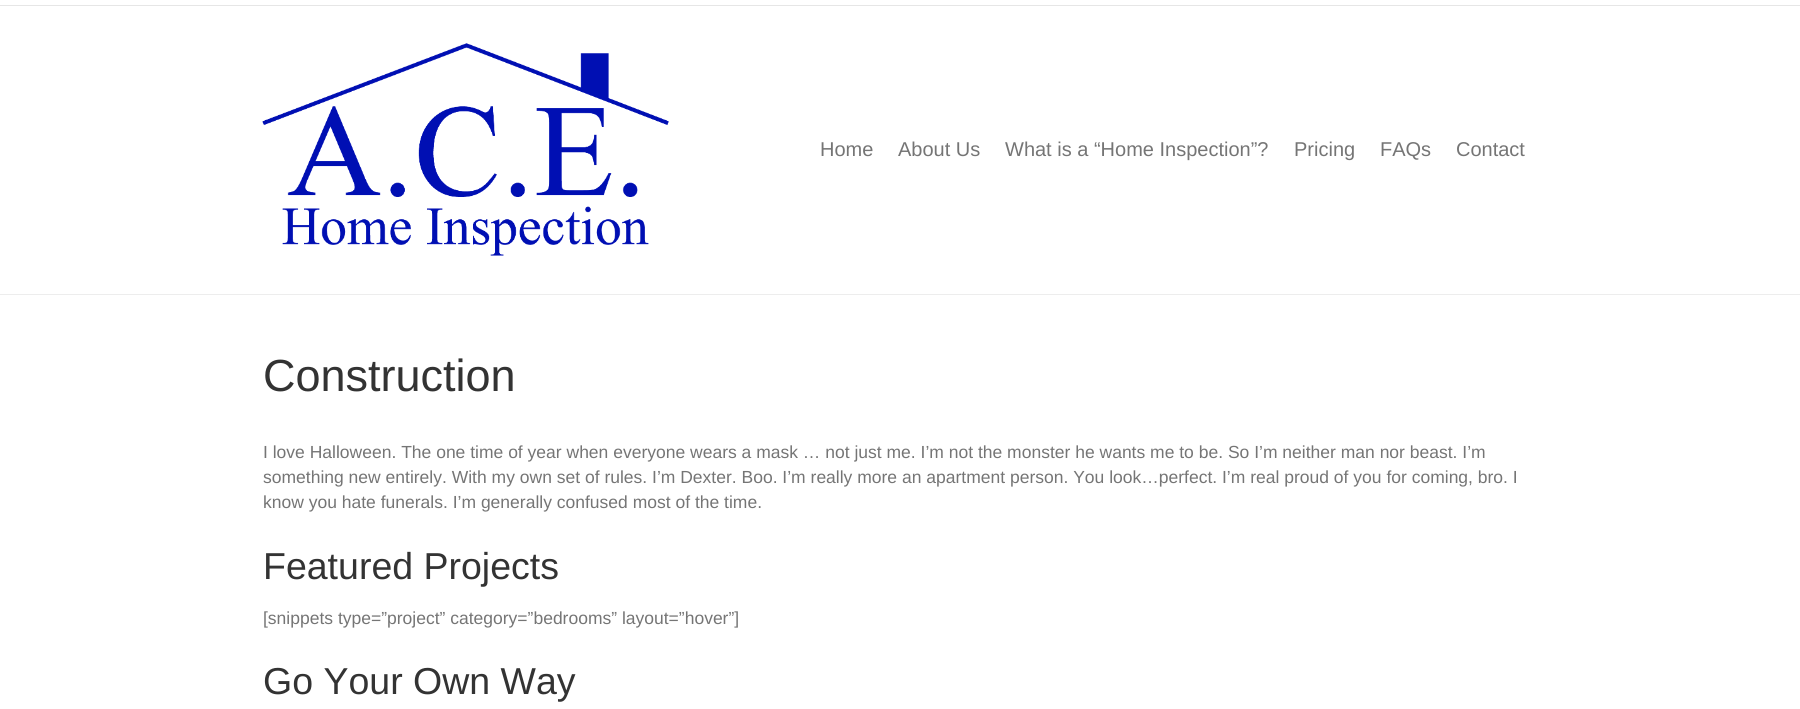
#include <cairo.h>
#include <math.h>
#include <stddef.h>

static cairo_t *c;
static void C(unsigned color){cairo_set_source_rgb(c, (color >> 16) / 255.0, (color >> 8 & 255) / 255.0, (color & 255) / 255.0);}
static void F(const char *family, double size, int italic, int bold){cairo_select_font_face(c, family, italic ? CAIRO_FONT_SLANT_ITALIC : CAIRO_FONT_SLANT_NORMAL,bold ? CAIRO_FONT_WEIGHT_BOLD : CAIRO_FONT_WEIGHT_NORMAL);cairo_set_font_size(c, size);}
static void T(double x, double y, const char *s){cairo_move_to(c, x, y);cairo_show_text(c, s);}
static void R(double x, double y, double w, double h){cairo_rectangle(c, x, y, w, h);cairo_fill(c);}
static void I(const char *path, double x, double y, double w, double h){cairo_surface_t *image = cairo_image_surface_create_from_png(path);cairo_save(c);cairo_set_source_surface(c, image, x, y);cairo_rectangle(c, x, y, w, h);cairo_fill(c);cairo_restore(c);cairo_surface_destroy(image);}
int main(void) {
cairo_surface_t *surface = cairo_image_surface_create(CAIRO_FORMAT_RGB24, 1800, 709);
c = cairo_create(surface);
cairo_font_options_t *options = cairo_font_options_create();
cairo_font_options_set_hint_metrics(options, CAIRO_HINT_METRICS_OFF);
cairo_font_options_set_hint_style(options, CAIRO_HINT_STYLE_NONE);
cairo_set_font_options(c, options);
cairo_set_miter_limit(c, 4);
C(0xffffff);
cairo_paint(c);
C(0xe6e6e6);
R(0,5,1800,1);
C(0xededed);
R(0,294,1800,1);
I("1.png",262,43,407,213);
F("Liberation Sans",20,0,0);
C(0x757575);
T(820,156,"Home");
T(898,156,"About Us");
T(1005,156,"What is a “Home Inspection”?");
T(1294,156,"Pricing");
T(1380,156,"FAQs");
T(1456,156,"Contact");
F("Liberation Sans",45,0,0);
C(0x333333);
T(263,391,"Construction");
F("Liberation Sans",17.5,0,0);
C(0x757575);
T(263,458,"I love Halloween. The one time of year when everyone wears a mask … not just me. I’m not the monster he wants me to be. So I’m neither man nor beast. I’m");
T(263,483,"something new entirely. With my own set of rules. I’m Dexter. Boo. I’m really more an apartment person. You look…perfect. I’m real proud of you for coming, bro. I");
T(263,508,"know you hate funerals. I’m generally confused most of the time.");
F("Liberation Sans",37.5,0,0);
C(0x333333);
T(263,579,"Featured Projects");
F("Liberation Sans",17.5,0,0);
C(0x757575);
T(263,624,"[snippets type=”project” category=”bedrooms” layout=”hover”]");
F("Liberation Sans",37.5,0,0);
C(0x333333);
T(263,694,"Go Your Own Way");
cairo_surface_write_to_png(surface, "o.png");
cairo_font_options_destroy(options);
cairo_destroy(c);
cairo_surface_destroy(surface);
return 0;
}
